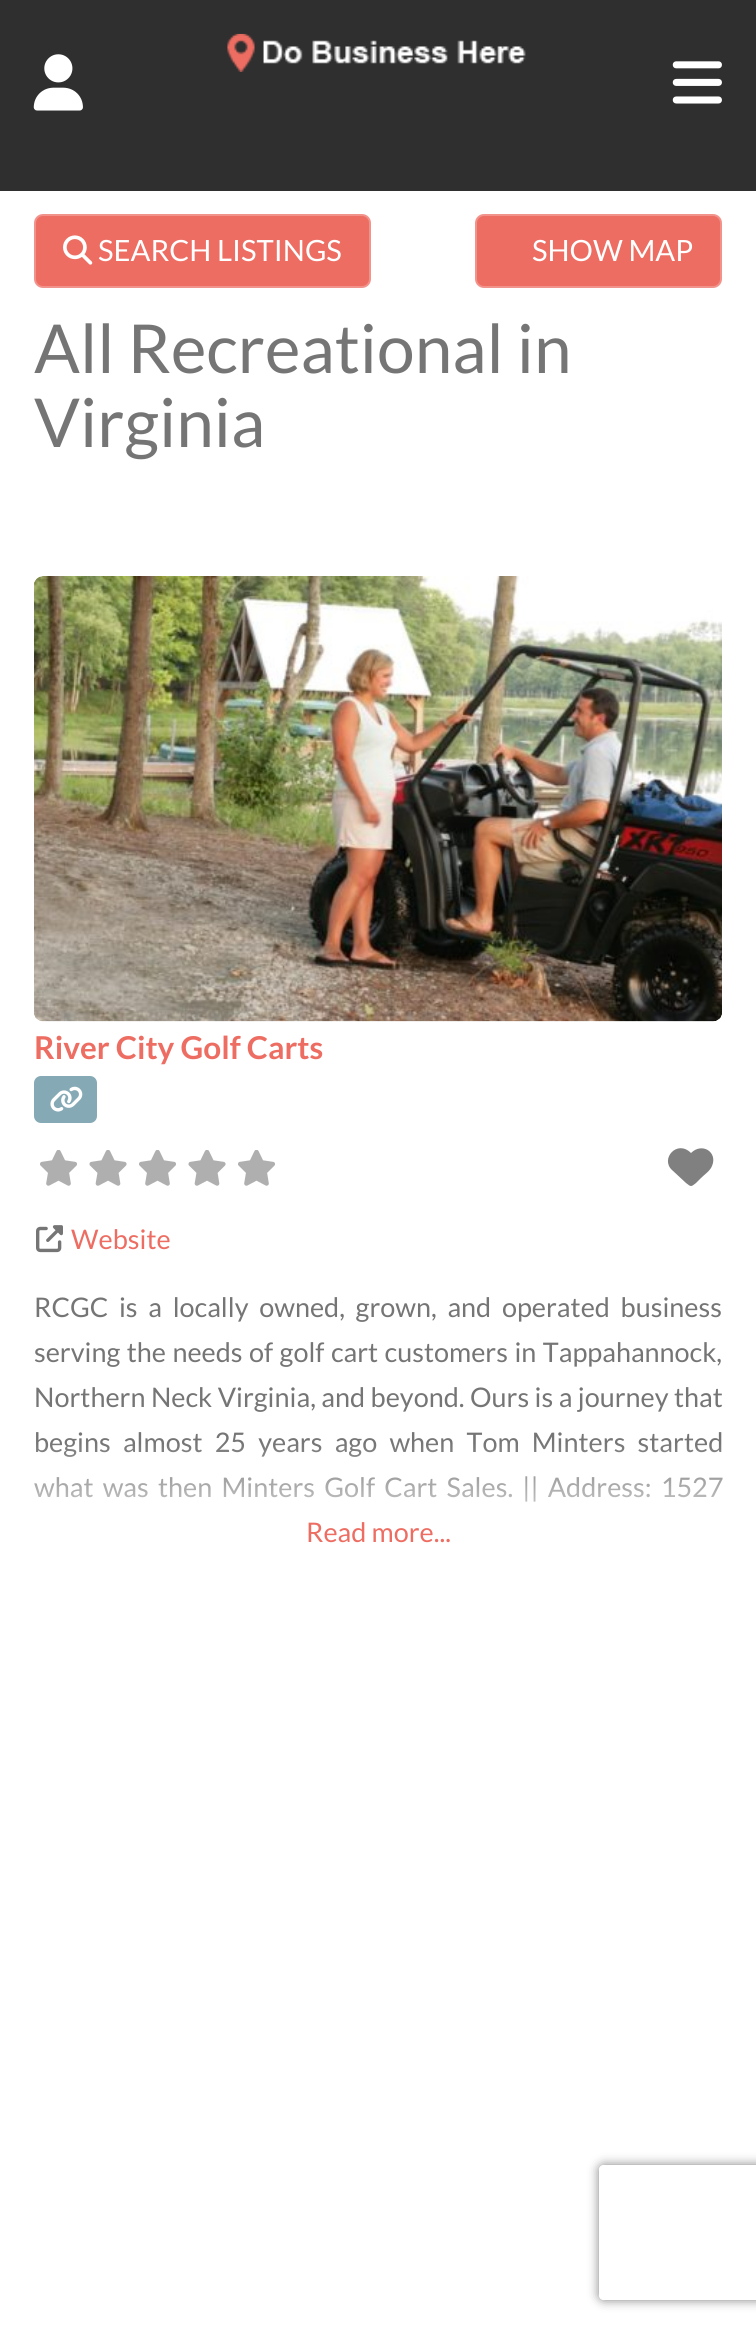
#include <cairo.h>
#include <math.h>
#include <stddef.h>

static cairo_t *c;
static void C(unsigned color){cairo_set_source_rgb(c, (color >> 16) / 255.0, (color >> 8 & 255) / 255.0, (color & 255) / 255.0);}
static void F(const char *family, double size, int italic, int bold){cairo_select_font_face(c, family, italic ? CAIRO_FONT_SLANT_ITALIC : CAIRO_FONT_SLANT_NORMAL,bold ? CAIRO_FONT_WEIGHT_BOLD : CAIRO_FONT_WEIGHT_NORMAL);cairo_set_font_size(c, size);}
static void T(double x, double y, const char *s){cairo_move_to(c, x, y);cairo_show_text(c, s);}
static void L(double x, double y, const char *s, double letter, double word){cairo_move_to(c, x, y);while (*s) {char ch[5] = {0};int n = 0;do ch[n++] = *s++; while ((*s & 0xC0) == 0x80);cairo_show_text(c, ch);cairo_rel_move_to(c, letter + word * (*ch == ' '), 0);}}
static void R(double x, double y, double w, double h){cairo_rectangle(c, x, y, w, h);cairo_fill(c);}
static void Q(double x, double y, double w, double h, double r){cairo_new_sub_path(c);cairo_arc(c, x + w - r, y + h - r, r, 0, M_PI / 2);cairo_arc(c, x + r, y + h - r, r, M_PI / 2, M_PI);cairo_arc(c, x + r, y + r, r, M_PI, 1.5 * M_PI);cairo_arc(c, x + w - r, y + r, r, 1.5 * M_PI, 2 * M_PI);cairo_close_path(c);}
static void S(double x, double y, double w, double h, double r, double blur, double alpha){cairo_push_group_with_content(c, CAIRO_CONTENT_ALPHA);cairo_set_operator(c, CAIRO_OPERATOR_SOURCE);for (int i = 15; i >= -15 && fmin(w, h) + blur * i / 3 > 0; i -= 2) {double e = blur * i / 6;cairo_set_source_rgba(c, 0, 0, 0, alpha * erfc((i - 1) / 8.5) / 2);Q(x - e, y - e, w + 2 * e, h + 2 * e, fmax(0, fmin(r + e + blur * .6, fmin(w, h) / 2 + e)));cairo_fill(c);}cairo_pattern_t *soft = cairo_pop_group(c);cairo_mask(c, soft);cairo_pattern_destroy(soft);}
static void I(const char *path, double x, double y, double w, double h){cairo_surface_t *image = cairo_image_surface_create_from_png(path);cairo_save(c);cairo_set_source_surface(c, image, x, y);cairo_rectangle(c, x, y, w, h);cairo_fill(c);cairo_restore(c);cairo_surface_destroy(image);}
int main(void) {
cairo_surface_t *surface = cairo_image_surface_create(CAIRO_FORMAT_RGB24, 756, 2329);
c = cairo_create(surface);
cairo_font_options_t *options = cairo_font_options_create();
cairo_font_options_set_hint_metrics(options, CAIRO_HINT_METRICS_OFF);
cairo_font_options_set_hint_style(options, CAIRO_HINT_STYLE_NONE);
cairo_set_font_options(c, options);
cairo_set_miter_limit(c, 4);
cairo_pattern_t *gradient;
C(0xffffff);
cairo_paint(c);
C(0x2f2f2f);
R(0,0,756,191);
I("1.png",33,54,50,57);
I("2.png",227,33,299,39);
I("3.png",672,61,50,43);
C(0xed6d62);
Q(35,215,335,72,8);
cairo_fill_preserve(c);
C(0xf2938b);
cairo_stroke(c);
I("4.png",63,235,30,30);
F("Lato",29.25,0,0);
C(0xffffff);
T(98,261,"SEARCH LISTINGS");
C(0xed6d62);
Q(476,215,245,72,8);
cairo_fill_preserve(c);
C(0xf2938b);
cairo_stroke(c);
C(0xffffff);
T(532,261,"SHOW MAP");
F("Lato",67.5,0,0);
C(0x757575);
T(34,373,"All Recreational in");
T(34,447,"Virginia");
I("5.png",34,576,688,446);
F("Lato",31.5,0,1);
C(0xed6d62);
T(34,1059,"River City Golf Carts");
C(0x85a9b5);
Q(34,1076,63,47,7);
cairo_fill(c);
I("6.png",50,1086,33,26);
I("7.png",40,1150,37,36);
I("8.png",89,1150,38,36);
I("7.png",139,1150,37,36);
I("8.png",188,1150,38,36);
I("7.png",238,1150,37,36);
C(0x808080);
cairo_new_path(c);
cairo_move_to(c,672,1170);
cairo_line_to(c,688,1185);
cairo_line_to(c,672,1170);
cairo_line_to(c,686,1183);
cairo_curve_to(c,691,1187,691,1187,696,1183);
cairo_line_to(c,701,1178);
cairo_curve_to(c,705,1174,710,1171,712,1166);
cairo_curve_to(c,718,1152,702,1142,691,1153);
cairo_curve_to(c,677,1139,660,1159,672,1170);
cairo_close_path(c);
cairo_fill(c);
I("9.png",36,1225,27,28);
F("Lato",27,0,0);
C(0xed6d62);
T(71,1249,"Website");
C(0x757575);
L(34,1317,"RCGC is a locally owned, grown, and operated business",0,5.5);
L(34,1362,"serving the needs of golf cart customers in Tappahannock,",0,1.25);
L(34,1407,"Northern Neck Virginia, and beyond. Ours is a journey that",0,.25);
L(34,1452,"begins almost 25 years ago when Tom Minters started",0,7);
L(34,1497,"what was then Minters Golf Cart Sales. || Address: 1527",0,4);
gradient = cairo_pattern_create_linear(378,1442,378,1555);
cairo_pattern_add_color_stop_rgba(gradient,0,1,1,1,0);
cairo_pattern_add_color_stop_rgba(gradient,1,1,1,1,1);
cairo_set_source(c,gradient);
cairo_pattern_destroy(gradient);
R(34,1444,688,58);
C(0xed6d62);
T(306,1542,"Read more...");
cairo_save(c);
cairo_set_fill_rule(c,CAIRO_FILL_RULE_EVEN_ODD);
cairo_new_path(c);
cairo_move_to(c,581,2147);
cairo_line_to(c,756,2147);
cairo_line_to(c,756,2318);
cairo_line_to(c,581,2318);
cairo_close_path(c);
cairo_move_to(c,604,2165);
cairo_line_to(c,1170,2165);
cairo_curve_to(c,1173,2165,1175,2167,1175,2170);
cairo_line_to(c,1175,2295);
cairo_curve_to(c,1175,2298,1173,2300,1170,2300);
cairo_line_to(c,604,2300);
cairo_curve_to(c,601,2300,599,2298,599,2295);
cairo_line_to(c,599,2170);
cairo_curve_to(c,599,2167,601,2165,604,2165);
cairo_close_path(c);
cairo_clip(c);
C(0x808080);
S(599,2165,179,135,5,5.5,1);
cairo_restore(c);
cairo_surface_write_to_png(surface, "o.png");
cairo_font_options_destroy(options);
cairo_destroy(c);
cairo_surface_destroy(surface);
return 0;
}
